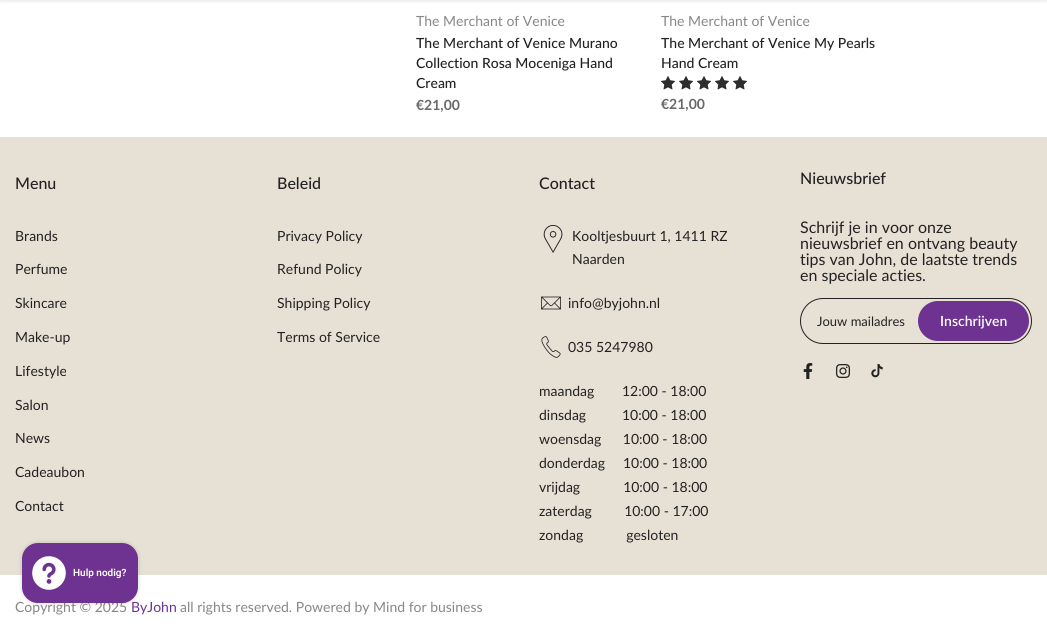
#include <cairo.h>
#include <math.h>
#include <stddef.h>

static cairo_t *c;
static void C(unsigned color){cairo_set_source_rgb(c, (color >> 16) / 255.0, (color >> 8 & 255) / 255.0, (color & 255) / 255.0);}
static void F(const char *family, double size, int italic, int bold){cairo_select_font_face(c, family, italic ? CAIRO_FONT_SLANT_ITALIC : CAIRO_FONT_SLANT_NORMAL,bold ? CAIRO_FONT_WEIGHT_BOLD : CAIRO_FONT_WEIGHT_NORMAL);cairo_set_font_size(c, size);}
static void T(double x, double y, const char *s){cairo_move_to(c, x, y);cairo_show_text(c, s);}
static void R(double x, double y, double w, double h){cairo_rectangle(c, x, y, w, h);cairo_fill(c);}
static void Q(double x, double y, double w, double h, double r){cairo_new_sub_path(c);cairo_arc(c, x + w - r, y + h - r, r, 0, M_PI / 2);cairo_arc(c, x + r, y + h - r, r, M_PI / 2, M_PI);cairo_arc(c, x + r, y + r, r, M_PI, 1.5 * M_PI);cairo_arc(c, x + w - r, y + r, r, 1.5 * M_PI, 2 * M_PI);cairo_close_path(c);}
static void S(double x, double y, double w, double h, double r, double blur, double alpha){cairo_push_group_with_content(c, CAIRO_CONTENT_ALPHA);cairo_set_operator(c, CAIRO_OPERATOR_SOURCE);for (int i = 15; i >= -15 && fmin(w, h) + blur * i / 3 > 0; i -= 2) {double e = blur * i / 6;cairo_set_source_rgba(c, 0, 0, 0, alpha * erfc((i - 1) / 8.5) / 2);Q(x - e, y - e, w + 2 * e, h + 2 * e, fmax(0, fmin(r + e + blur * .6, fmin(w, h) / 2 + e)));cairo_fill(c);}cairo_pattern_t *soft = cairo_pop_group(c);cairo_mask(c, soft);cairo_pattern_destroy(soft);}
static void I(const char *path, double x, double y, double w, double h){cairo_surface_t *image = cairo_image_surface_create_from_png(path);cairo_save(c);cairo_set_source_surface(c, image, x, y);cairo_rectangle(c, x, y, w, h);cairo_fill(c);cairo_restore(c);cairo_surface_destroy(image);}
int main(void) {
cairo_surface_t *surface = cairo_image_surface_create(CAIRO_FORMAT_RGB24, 1047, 624);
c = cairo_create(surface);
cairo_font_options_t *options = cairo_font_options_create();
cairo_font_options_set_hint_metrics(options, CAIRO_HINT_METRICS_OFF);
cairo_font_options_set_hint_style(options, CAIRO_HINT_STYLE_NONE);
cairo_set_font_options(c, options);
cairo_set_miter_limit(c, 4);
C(0xffffff);
cairo_paint(c);
C(0x000000);
S(0,-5,1047,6,0,1.5,.1);
F("Lato",14,0,0);
C(0x878787);
T(416,26,"The Merchant of Venice");
F("Lato Medium",14,0,0);
C(0x222222);
T(416,48,"The Merchant of Venice Murano");
T(416,68,"Collection Rosa Moceniga Hand");
T(416,88,"Cream");
F("Lato",14,0,1);
C(0x696969);
T(416,110,"€21,00");
F("Lato",14,0,0);
C(0x878787);
T(661,26,"The Merchant of Venice");
F("Lato Medium",14,0,0);
C(0x222222);
T(661,48,"The Merchant of Venice My Pearls");
T(661,68,"Hand Cream");
I("1.png",661,76,14,14);
I("1.png",679,76,14,14);
I("1.png",697,76,14,14);
I("1.png",715,76,14,14);
I("1.png",733,76,14,14);
F("Lato",14,0,1);
C(0x696969);
T(661,109,"€21,00");
C(0xe7e0d5);
R(0,137,1047,438);
F("Lato Medium",16,0,0);
C(0x222222);
T(15,189,"Menu");
F("Lato",14,0,0);
T(15,241,"Brands");
T(15,274,"Perfume");
T(15,308,"Skincare");
T(15,342,"Make-up");
T(15,376,"Lifestyle");
T(15,410,"Salon");
T(15,443,"News");
T(15,477,"Cadeaubon");
T(15,511,"Contact");
F("Lato Medium",16,0,0);
T(277,189,"Beleid");
F("Lato",14,0,0);
T(277,241,"Privacy Policy");
T(277,274,"Refund Policy");
T(277,308,"Shipping Policy");
T(277,342,"Terms of Service");
F("Lato Medium",16,0,0);
T(539,189,"Contact");
I("2.png",543,225,20,28);
F("Lato",14,0,0);
T(572,241,"Kooltjesbuurt 1, 1411 RZ");
T(572,264,"Naarden");
I("3.png",541,296,20,14);
T(568,308,"info@byjohn.nl");
I("4.png",541,336,20,22);
T(568,352,"035 5247980");
T(539,396,"maandag");
T(622,396,"12:00 - 18:00");
T(539,420,"dinsdag          10:00 - 18:00");
T(539,444,"woensdag      10:00 - 18:00");
T(539,468,"donderdag     10:00 - 18:00");
T(539,492,"vrijdag            10:00 - 18:00");
T(539,516,"zaterdag         10:00 - 17:00");
T(539,540,"zondag            gesloten");
F("Lato Medium",16,0,0);
T(800,184,"Nieuwsbrief");
F("Lato",16,0,0);
T(800,233,"Schrijf je in voor onze");
T(800,249,"nieuwsbrief en ontvang beauty");
T(800,265,"tips van John, de laatste trends");
T(800,281,"en speciale acties.");
Q(800.5,298.5,231,45,22.5);
cairo_set_line_width(c,1);
cairo_stroke(c);
F("Lato",13,0,0);
T(817,326,"Jouw mailadres");
C(0x6e3390);
Q(918,301,111,40,20);
cairo_fill(c);
F("Lato SemiBold",14,0,0);
C(0xffffff);
T(940,326,"Inschrijven");
I("5.png",803,363,10,16);
I("6.png",836,364,14,14);
I("7.png",871,364,12,14);
F("Lato",14,0,0);
C(0x878787);
T(15,612,"Copyright © 2025");
C(0x6e3390);
T(131,612,"ByJohn");
C(0x878787);
T(180,612,"all rights reserved. Powered by Mind for business");
C(0x000000);
S(22,543,116,60,16,2.5,.15);
C(0x6e3390);
Q(22,543,116,60,16);
cairo_fill(c);
I("8.png",32,556,34,34);
F("Roboto SemiBold",10,0,0);
C(0xffffff);
T(73,576,"Hulp nodig?");
cairo_surface_write_to_png(surface, "o.png");
cairo_font_options_destroy(options);
cairo_destroy(c);
cairo_surface_destroy(surface);
return 0;
}
